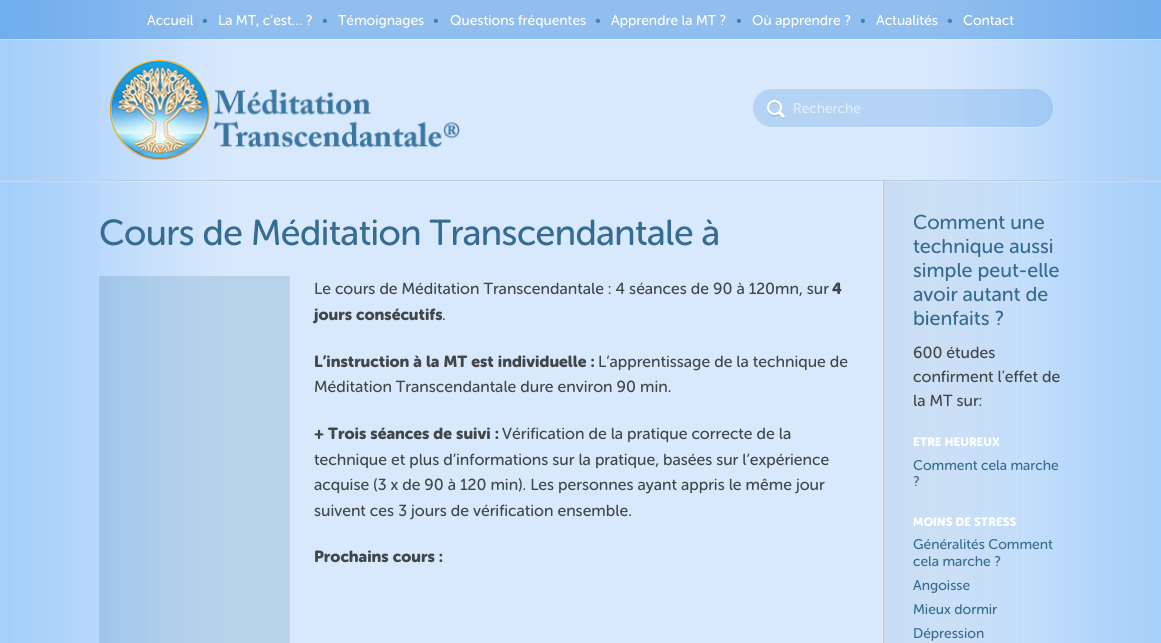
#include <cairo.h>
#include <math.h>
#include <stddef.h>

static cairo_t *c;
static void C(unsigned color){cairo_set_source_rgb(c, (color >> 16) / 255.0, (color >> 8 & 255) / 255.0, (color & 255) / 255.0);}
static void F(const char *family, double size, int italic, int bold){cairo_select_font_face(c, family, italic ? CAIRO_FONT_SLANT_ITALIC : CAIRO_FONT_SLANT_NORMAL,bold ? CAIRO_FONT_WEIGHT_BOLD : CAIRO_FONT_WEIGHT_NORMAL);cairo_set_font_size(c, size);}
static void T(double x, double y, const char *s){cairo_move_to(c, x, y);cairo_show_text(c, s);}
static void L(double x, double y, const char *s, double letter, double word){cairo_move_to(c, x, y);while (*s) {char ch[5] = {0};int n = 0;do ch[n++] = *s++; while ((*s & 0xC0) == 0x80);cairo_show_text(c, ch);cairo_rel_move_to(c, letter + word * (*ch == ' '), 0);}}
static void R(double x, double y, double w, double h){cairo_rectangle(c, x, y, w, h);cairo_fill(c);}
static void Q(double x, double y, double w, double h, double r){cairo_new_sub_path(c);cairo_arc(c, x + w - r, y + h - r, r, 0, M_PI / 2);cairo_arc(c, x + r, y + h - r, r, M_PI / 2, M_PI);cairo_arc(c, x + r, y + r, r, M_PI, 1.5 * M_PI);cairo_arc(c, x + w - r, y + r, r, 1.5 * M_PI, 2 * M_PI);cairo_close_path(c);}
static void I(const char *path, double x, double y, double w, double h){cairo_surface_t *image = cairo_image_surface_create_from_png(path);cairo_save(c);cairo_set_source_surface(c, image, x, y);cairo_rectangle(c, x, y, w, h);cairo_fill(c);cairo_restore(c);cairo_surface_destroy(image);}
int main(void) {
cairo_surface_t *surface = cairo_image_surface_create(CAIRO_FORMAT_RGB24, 1161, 643);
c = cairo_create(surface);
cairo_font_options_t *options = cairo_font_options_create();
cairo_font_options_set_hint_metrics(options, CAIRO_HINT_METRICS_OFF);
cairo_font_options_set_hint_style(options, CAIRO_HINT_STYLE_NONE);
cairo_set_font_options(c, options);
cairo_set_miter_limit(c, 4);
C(0xffffff);
cairo_paint(c);
I("1.png",0,0,1161,643);
cairo_set_source_rgba(c,1,1,1,0.25);
R(0,39,1161,1);
cairo_set_source_rgba(c,0.137,0.494,0.855,0.4);
R(0,0,1161,39);
F("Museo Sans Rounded",14,0,0);
C(0xffffff);
T(147,25,"Accueil");
C(0x4681ac);
T(202,25,"•");
C(0xffffff);
T(218,25,"La MT, c’est… ?");
C(0x4681ac);
T(322,25,"•");
C(0xffffff);
T(338,25,"Témoignages");
C(0x4681ac);
T(433,25,"•");
C(0xffffff);
T(450,25,"Questions fréquentes");
C(0x4681ac);
T(595,25,"•");
C(0xffffff);
T(611,25,"Apprendre la MT ?");
C(0x4681ac);
T(736,25,"•");
C(0xffffff);
T(752,25,"Où apprendre ?");
C(0x4681ac);
T(860,25,"•");
C(0xffffff);
T(876,25,"Actualités");
C(0x4681ac);
T(947,25,"•");
C(0xffffff);
T(963,25,"Contact");
I("2.png",110,60,350,100);
cairo_set_source_rgba(c,1,1,1,0.25);
cairo_new_path(c);
cairo_move_to(c,753,108);
cairo_curve_to(c,753,119,761,128,772,128);
cairo_line_to(c,1034,128);
cairo_curve_to(c,1045,128,1053,119,1053,108);
cairo_curve_to(c,1053,119,1044,127,1034,127);
cairo_line_to(c,772,127);
cairo_curve_to(c,762,127,753,119,753,108);
cairo_close_path(c);
cairo_fill(c);
cairo_set_source_rgba(c,0.137,0.494,0.855,0.2);
Q(753,89,300,38,19);
cairo_fill(c);
I("3.png",767,100,18,19);
C(0xe1eefb);
T(793,113,"Recherche");
cairo_set_source_rgba(c,1,1,1,0.25);
R(0,181,1161,1);
C(0xb9cde7);
R(0,180,1161,1);
I("4.png",882,181,139,462);
F("Museo Sans Rounded",36,0,0);
C(0x366c92);
L(99,245,"Cours de Méditation Transcendantale à",-.5,0);
I("5.png",99,276,191,367);
F("Museo Sans Rounded",16,0,0);
C(0x414649);
T(314,294,"Le cours de Méditation Transcendantale : 4 séances de 90 à 120mn, sur");
F("Museo Sans Rounded",16,0,1);
T(832,294,"4");
T(314,320,"jours consécutifs");
F("Museo Sans Rounded",16,0,0);
T(442,320,".");
F("Museo Sans Rounded",16,0,1);
T(314,367,"L’instruction à la MT est individuelle :");
F("Museo Sans Rounded",16,0,0);
T(598,367,"L’apprentissage de la technique de");
T(314,392,"Méditation Transcendantale dure environ 90 min.");
F("Museo Sans Rounded",16,0,1);
T(314,439,"+ Trois séances de suivi :");
F("Museo Sans Rounded",16,0,0);
T(502,439,"Vérification de la pratique correcte de la");
T(314,465,"technique et plus d’informations sur la pratique, basées sur l’expérience");
T(314,490,"acquise (3 x de 90 à 120 min). Les personnes ayant appris le même jour");
T(314,516,"suivent ces 3 jours de vérification ensemble.");
F("Museo Sans Rounded",16,0,1);
T(314,562,"Prochains cours :");
F("Museo Sans Rounded",20,0,0);
C(0x366c92);
T(913,229,"Comment une");
T(913,253,"technique aussi");
T(913,277,"simple peut-elle");
T(913,301,"avoir autant de");
T(913,325,"bienfaits ?");
F("Museo Sans Rounded",16,0,0);
C(0x414649);
T(913,358,"600 études");
T(913,382,"confirment l'effet de");
T(913,406,"la MT sur:");
F("Museo Sans Rounded",12,0,1);
C(0xffffff);
T(913,446,"ETRE HEUREUX");
F("Museo Sans Rounded",14,0,0);
C(0x366c92);
T(913,470,"Comment cela marche");
T(913,486,"?");
F("Museo Sans Rounded",12,0,1);
C(0xffffff);
T(913,526,"MOINS DE STRESS");
F("Museo Sans Rounded",14,0,0);
C(0x366c92);
T(913,549,"Généralités Comment");
T(913,566,"cela marche ?");
T(913,590,"Angoisse");
T(913,614,"Mieux dormir");
T(913,638,"Dépression");
cairo_surface_write_to_png(surface, "o.png");
cairo_font_options_destroy(options);
cairo_destroy(c);
cairo_surface_destroy(surface);
return 0;
}
